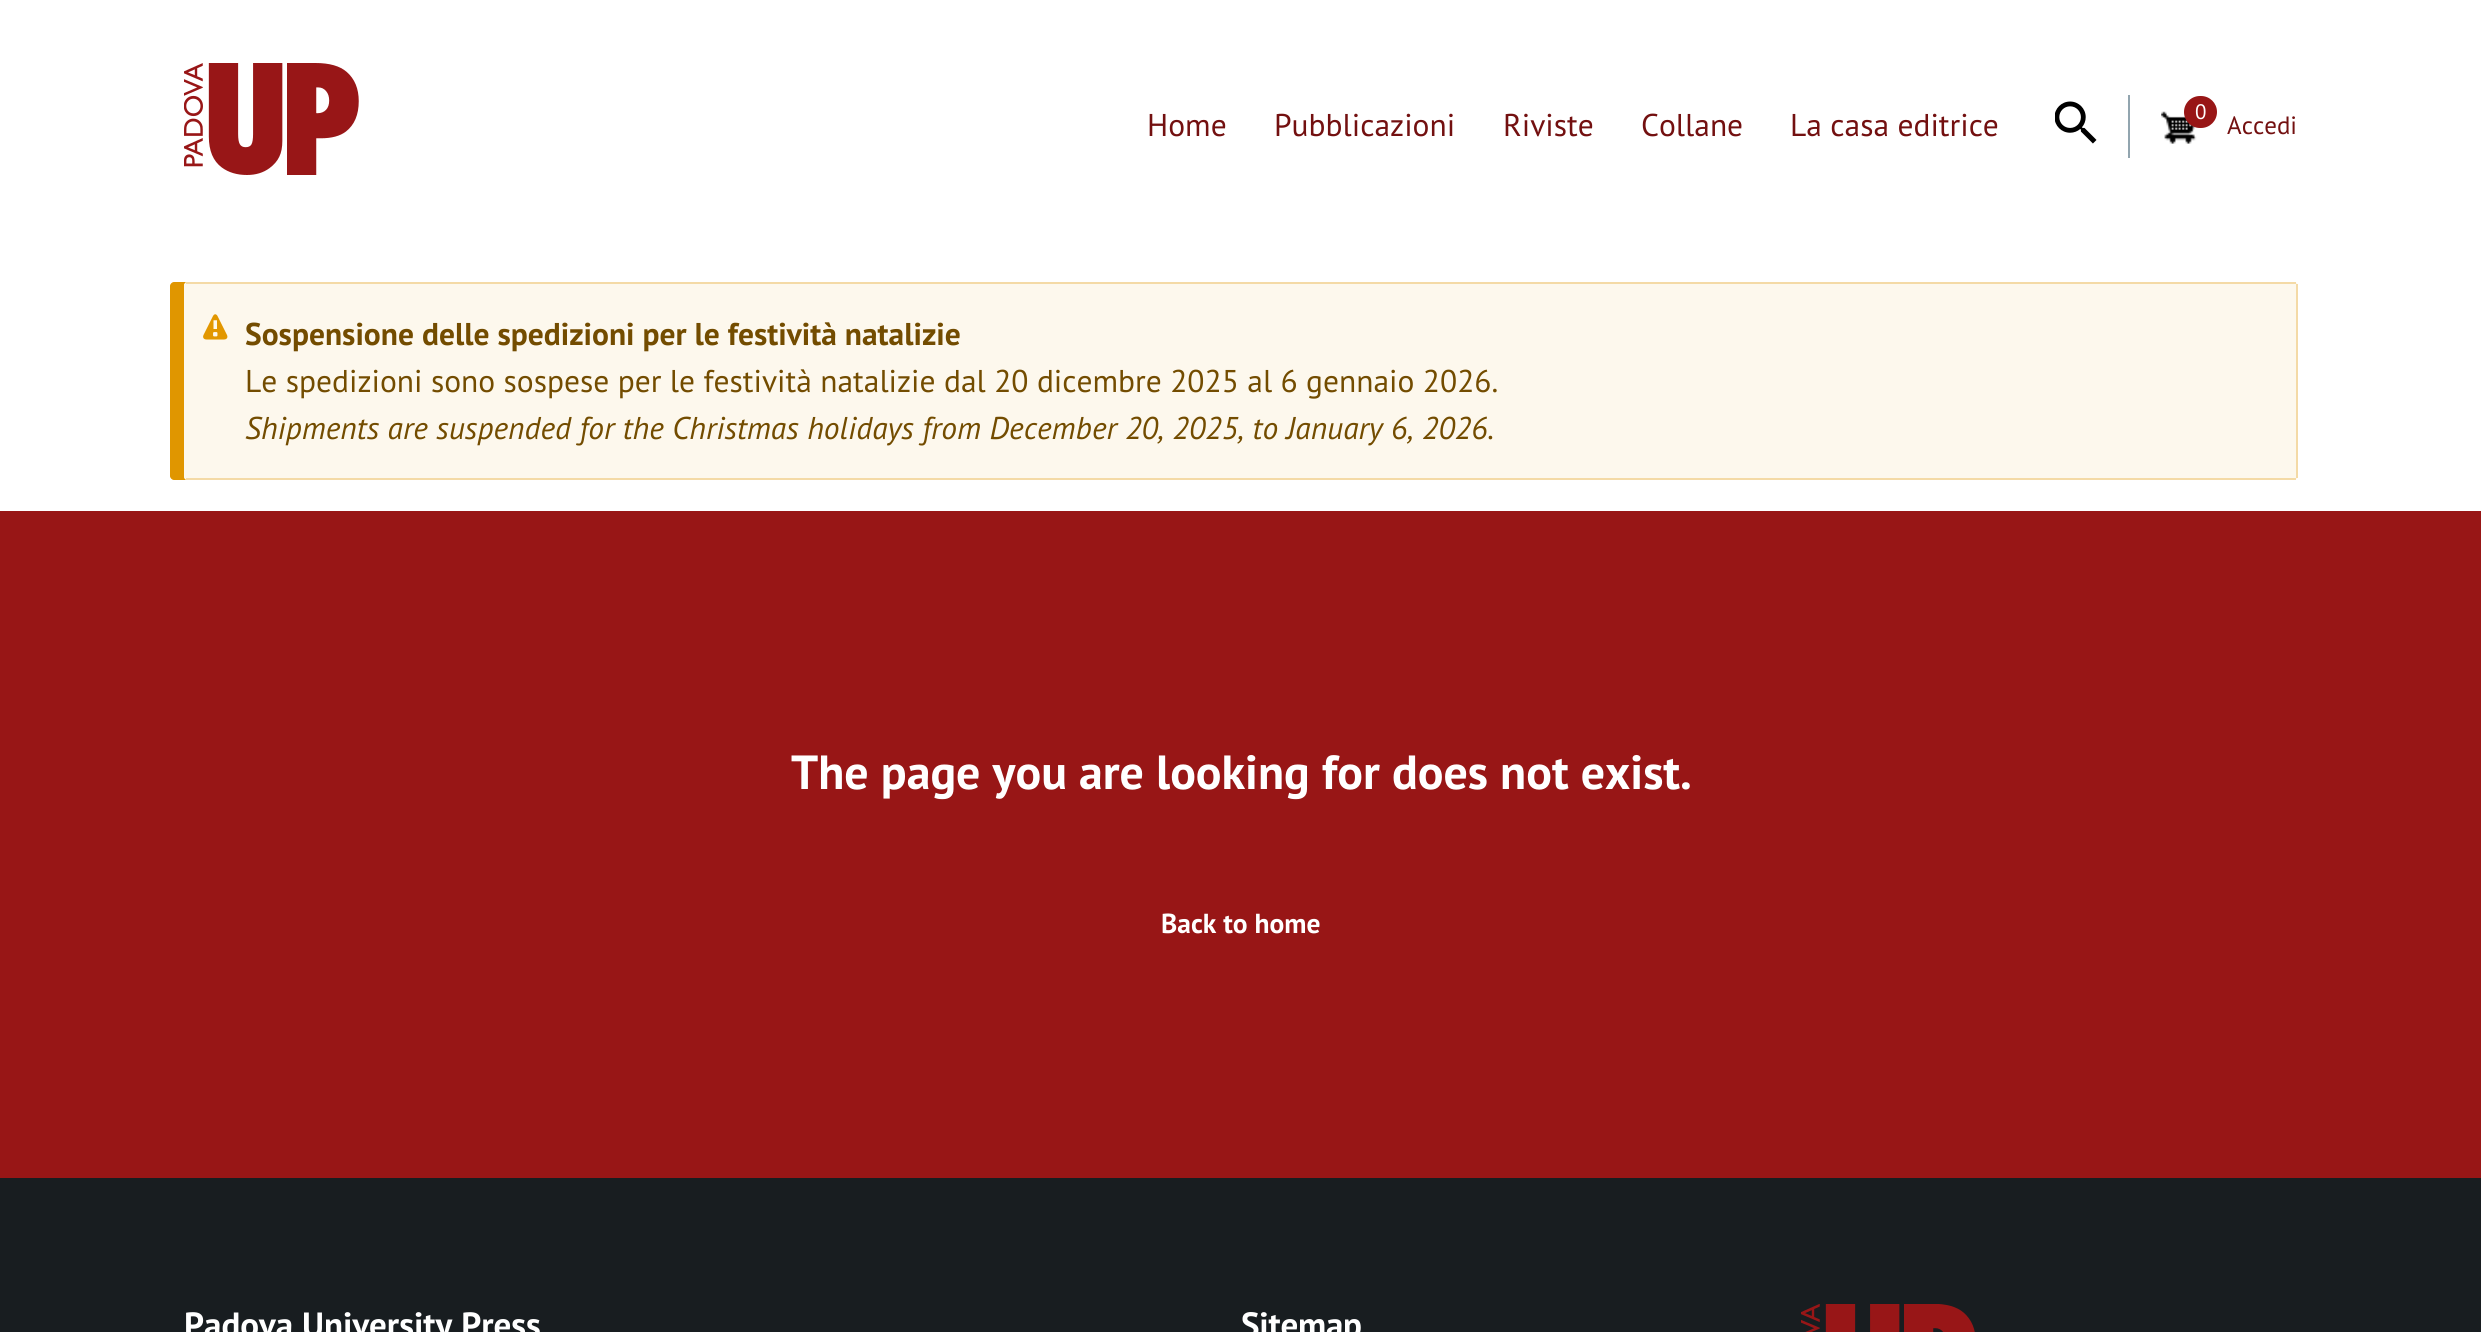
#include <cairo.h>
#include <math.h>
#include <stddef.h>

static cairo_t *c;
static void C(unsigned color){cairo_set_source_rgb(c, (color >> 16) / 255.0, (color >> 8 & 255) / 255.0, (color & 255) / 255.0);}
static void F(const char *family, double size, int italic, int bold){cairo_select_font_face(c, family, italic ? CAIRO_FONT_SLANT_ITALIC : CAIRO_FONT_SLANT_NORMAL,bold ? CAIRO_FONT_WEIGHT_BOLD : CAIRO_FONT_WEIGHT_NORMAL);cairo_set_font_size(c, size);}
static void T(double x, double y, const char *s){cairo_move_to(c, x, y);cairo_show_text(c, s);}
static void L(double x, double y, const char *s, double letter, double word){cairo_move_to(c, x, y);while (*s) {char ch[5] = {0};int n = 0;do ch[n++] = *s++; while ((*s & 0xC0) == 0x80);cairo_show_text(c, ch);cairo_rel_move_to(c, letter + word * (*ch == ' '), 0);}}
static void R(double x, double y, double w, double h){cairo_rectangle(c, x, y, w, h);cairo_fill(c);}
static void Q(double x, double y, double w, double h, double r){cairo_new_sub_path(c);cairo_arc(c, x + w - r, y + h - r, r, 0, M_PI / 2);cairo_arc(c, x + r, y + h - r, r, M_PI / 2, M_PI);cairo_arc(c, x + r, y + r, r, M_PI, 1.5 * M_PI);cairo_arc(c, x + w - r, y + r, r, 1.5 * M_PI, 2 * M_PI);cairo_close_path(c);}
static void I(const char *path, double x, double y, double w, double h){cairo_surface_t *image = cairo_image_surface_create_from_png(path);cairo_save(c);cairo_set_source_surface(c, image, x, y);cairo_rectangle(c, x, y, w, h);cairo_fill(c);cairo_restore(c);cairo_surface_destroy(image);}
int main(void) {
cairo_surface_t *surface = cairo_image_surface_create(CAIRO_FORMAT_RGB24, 2481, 1332);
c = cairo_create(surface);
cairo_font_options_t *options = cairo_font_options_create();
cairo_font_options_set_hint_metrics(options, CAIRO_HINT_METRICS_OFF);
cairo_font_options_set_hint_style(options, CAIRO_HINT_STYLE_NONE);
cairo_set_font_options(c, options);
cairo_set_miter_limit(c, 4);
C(0xffffff);
cairo_paint(c);
I("1.png",184,63,175,112);
F("PT Sans",31.5,0,0);
C(0x731010);
T(1147,136,"Home");
T(1274,136,"Pubblicazioni");
T(1503,136,"Riviste");
T(1641,136,"Collane");
T(1790,136,"La casa editrice");
I("2.png",2055,101,42,43);
C(0x92a5af);
R(2128,95,2,63);
I("3.png",2161,111,36,33);
C(0x981616);
Q(2184,96,33,32,16);
cairo_fill(c);
F("PT Sans",21,0,0);
C(0xffffff);
T(2195,119,"0");
F("PT Sans",25,0,0);
C(0x731010);
T(2227,134,"Accedi");
C(0xe09600);
cairo_new_path(c);
cairo_move_to(c,174,282);
cairo_curve_to(c,172,282,170,284,170,286);
cairo_line_to(c,170,476);
cairo_curve_to(c,170,478,172,480,174,480);
cairo_line_to(c,2280,480);
cairo_line_to(c,2282,480);
cairo_line_to(c,187,480);
cairo_curve_to(c,185,480,184,478,184,476);
cairo_line_to(c,184,285);
cairo_curve_to(c,184,284,185,283,186,282);
cairo_close_path(c);
cairo_fill(c);
C(0xfdf8ed);
Q(184,282,2114,198,4);
cairo_fill(c);
I("4.png",203,314,25,26);
C(0xf4daa6);
R(186,282,2110,2);
R(2296,284,2,194);
R(186,478,2110,2);
F("PT Sans",31.5,0,1);
C(0x734c00);
T(245,345,"Sospensione delle spedizioni per le festività natalizie");
F("PT Sans",31.5,0,0);
T(245,392,"Le spedizioni sono sospese per le festività natalizie dal 20 dicembre 2025 al 6 gennaio 2026.");
F("PT Sans",31.5,1,0);
T(245,439,"Shipments are suspended for the Christmas holidays from December 20, 2025, to January 6, 2026.");
C(0x981616);
R(0,511,2481,667);
F("PT Sans",47.9,0,1);
C(0xffffff);
T(791,789,"The page you are looking for does not exist.");
F("PT Sans",27.5,0,1);
T(1161,933,"Back to home");
C(0x181d20);
R(0,1178,2481,154);
F("PT Sans",35,0,1);
C(0xffffff);
T(184,1337,"Padova University Press");
L(1241,1337,"Sitemap",-.25,0);
I("5.png",1801,1304,174,28);
cairo_surface_write_to_png(surface, "o.png");
cairo_font_options_destroy(options);
cairo_destroy(c);
cairo_surface_destroy(surface);
return 0;
}
